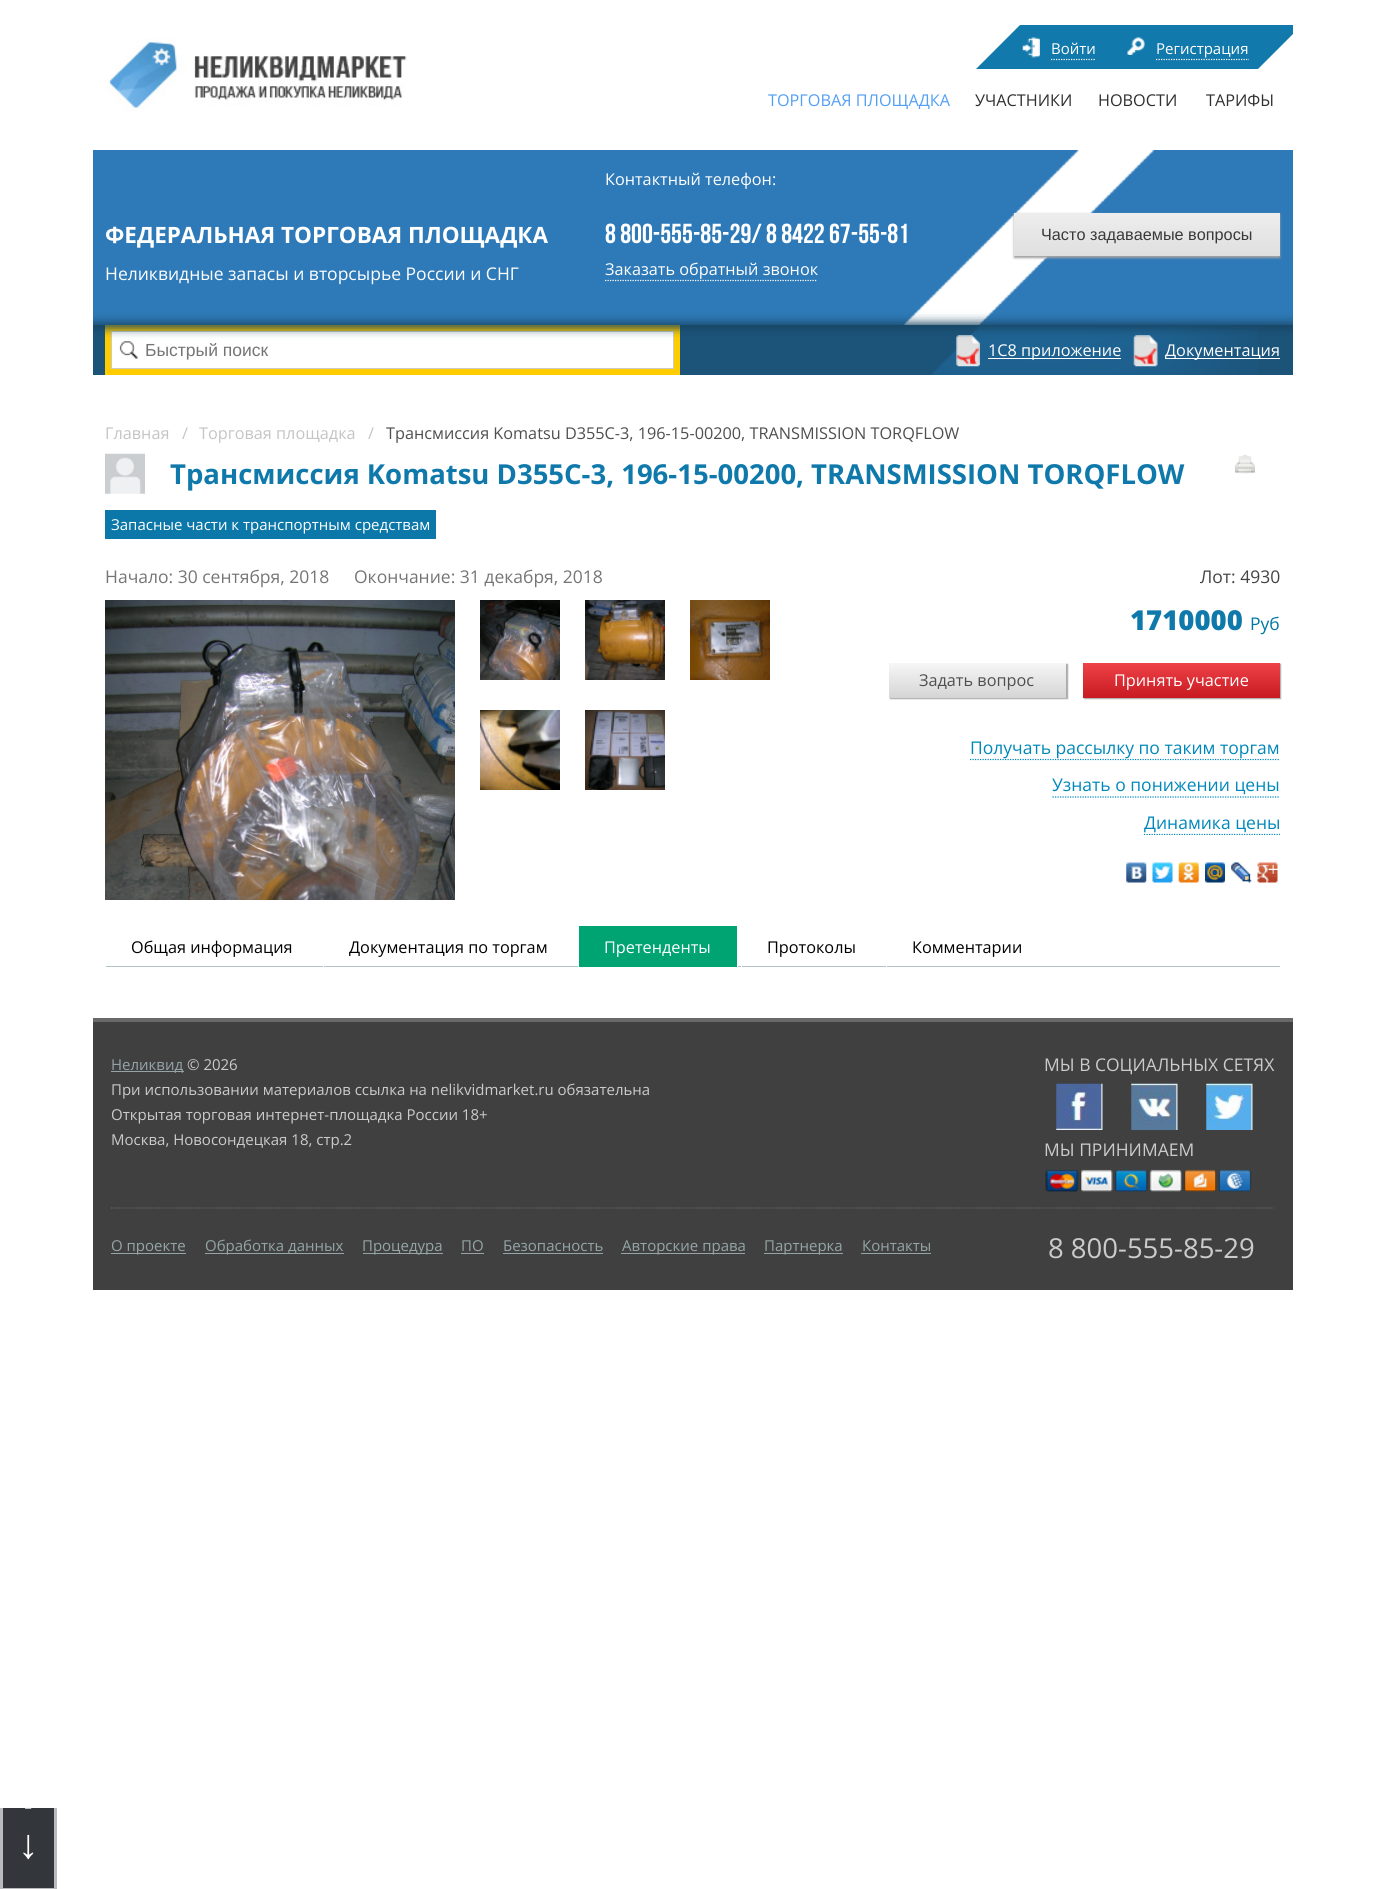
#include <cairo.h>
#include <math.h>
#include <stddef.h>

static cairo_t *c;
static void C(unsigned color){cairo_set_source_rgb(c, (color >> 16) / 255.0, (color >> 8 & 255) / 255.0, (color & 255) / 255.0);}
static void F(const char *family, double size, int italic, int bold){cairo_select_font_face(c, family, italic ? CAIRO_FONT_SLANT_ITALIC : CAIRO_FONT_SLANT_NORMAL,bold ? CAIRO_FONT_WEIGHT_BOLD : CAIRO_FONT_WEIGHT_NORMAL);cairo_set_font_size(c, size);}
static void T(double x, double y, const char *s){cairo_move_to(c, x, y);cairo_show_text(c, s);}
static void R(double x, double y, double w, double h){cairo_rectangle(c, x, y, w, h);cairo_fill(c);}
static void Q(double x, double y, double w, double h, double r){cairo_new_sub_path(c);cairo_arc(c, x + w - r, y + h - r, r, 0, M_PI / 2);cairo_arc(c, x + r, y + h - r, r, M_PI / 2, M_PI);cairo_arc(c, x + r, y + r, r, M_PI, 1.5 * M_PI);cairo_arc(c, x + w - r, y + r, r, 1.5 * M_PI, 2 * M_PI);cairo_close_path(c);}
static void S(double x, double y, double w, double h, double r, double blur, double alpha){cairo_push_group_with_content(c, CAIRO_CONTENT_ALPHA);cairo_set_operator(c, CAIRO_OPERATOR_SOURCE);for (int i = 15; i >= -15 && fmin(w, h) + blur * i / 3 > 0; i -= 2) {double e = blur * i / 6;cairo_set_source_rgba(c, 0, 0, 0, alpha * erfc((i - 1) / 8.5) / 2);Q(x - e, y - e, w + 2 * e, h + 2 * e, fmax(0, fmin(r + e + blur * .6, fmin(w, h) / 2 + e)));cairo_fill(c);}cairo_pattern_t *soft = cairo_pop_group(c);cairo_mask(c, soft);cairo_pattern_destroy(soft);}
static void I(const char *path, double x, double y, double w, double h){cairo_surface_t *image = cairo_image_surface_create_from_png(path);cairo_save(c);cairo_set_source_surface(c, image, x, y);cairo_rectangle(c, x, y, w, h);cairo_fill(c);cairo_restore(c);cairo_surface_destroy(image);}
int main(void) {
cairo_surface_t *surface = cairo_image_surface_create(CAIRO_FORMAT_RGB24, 1384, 1889);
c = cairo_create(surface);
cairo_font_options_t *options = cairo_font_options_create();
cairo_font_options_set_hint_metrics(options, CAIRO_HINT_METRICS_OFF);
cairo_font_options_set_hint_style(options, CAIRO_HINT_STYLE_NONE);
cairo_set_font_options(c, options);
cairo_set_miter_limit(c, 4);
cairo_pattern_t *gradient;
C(0xffffff);
cairo_paint(c);
I("1.png",105,37,302,76);
cairo_save(c);
cairo_rectangle(c,93,0,1200,388);
cairo_clip(c);
C(0x1179ab);
cairo_new_path(c);
cairo_move_to(c,1020,25);
cairo_line_to(c,1302,25);
cairo_line_to(c,1258,69);
cairo_line_to(c,976,69);
cairo_close_path(c);
cairo_fill(c);
cairo_restore(c);
I("2.png",1022,37,18,21);
F("Open Sans",15,0,0);
C(0xffffff);
T(1051,54,"Войти");
cairo_new_path(c);
cairo_move_to(c,1051,59.5);
cairo_line_to(c,1096,59.5);
cairo_set_line_width(c,1.2);
cairo_set_dash(c,(double[]){1.25,1.25},2,0);
cairo_stroke(c);
I("3.png",1127,37,18,18);
T(1156,54,"Регистрация");
cairo_new_path(c);
cairo_move_to(c,1156,59.5);
cairo_line_to(c,1249,59.5);
cairo_stroke(c);
F("Open Sans",16.25,0,0);
C(0x539ff5);
T(768,106,"ТОРГОВАЯ ПЛОЩАДКА");
C(0x303030);
T(975,106,"УЧАСТНИКИ");
T(1098,106,"НОВОСТИ");
T(1206,106,"ТАРИФЫ");
C(0x2e7ab8);
R(93,150,1200,175);
I("4.png",903,150,252,175);
F("Open Sans",22.5,0,1);
C(0xffffff);
T(105,243,"ФЕДЕРАЛЬНАЯ ТОРГОВАЯ ПЛОЩАДКА");
F("Open Sans",17.5,0,0);
T(105,280,"Неликвидные запасы и вторсырье России и СНГ");
F("Open Sans",16.25,0,0);
T(605,185,"Контактный телефон:");
F("Bebas Neue",27.5,0,0);
T(605,243,"8 800-555-85-29/ 8 8422 67-55-81");
F("Open Sans",16.25,0,0);
T(605,275,"Заказать обратный звонок");
cairo_new_path(c);
cairo_move_to(c,605,280.5);
cairo_line_to(c,817.5,280.5);
cairo_stroke(c);
C(0xa3a3a3);
S(1014,214,266,44,0,1,1);
gradient = cairo_pattern_create_linear(1147,213,1147,256);
cairo_pattern_add_color_stop_rgba(gradient,.05,0.929,0.929,0.929,1);
cairo_pattern_add_color_stop_rgba(gradient,1,0.875,0.875,0.875,1);
cairo_set_source(c,gradient);
cairo_pattern_destroy(gradient);
R(1014,213,266,43);
F("Liberation Sans",16.25,0,0);
C(0x393939);
T(1041,240,"Часто задаваемые вопросы");
C(0x1c5379);
R(93,325,1200,50);
I("5.png",930,325,328,50);
C(0xffcc00);
R(105,325,575,50);
C(0xffffff);
R(112,332,561,36);
I("6.png",119,341,19,18);
cairo_rectangle(c,111.5,331.5,562,37);
C(0xcbcbcb);
cairo_set_line_width(c,1);
cairo_set_dash(c,NULL,0,0);
cairo_stroke(c);
I("7.png",956,335,24,32);
I("8.png",1133,335,25,32);
cairo_save(c);
cairo_rectangle(c,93,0,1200,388);
cairo_clip(c);
C(0x16425f);
S(90,323,1205,5,0,5,1);
cairo_restore(c);
F("Liberation Sans",17.5,0,0);
C(0x757575);
T(145,356,"Быстрый поиск");
C(0xffffff);
R(988,358,133,1);
F("Open Sans",16.25,0,0);
T(988,356,"1С8 приложение");
R(1165,358,115,1);
T(1165,356,"Документация");
C(0xc4c4c4);
T(105,439,"Главная");
T(182,439,"/");
T(199,439,"Торговая площадка");
T(368,439,"/");
C(0x4f4f4f);
T(386,439,"Трансмиссия Komatsu D355C-3, 196-15-00200, TRANSMISSION TORQFLOW");
I("9.png",105,453,40,41);
F("Open Sans",27.5,0,1);
C(0x0e79aa);
T(170,484,"Трансмиссия Komatsu D355C-3, 196-15-00200, TRANSMISSION TORQFLOW");
I("10.png",1235,455,20,19);
C(0x0b78a9);
R(105,510,331,29);
F("Open Sans",15,0,0);
C(0xffffff);
T(111,530,"Запасные части к транспортным средствам");
F("Open Sans",17.5,0,0);
C(0x757575);
T(105,583,"Начало: 30 сентября, 2018");
T(354,583,"Окончание: 31 декабря, 2018");
C(0x444444);
T(1200,583,"Лот: 4930");
I("11.png",105,600,350,300);
I("12.png",480,600,80,80);
I("13.png",585,600,80,80);
I("14.png",690,600,80,80);
I("15.png",480,710,80,80);
I("16.png",585,710,80,80);
F("Open Sans ExtraBold",27.5,0,0);
C(0x0e79aa);
T(1130,630,"1710000");
F("Open Sans",17.5,0,0);
C(0x0078a4);
T(1250,630,"Руб");
C(0xababab);
S(890,664,178,35,0,.5,1);
gradient = cairo_pattern_create_linear(978,663,978,698);
cairo_pattern_add_color_stop_rgba(gradient,0,0.965,0.965,0.965,1);
cairo_pattern_add_color_stop_rgba(gradient,1,0.835,0.835,0.835,1);
cairo_set_source(c,gradient);
cairo_pattern_destroy(gradient);
R(889,663,177,35);
F("Open Sans",16.25,0,0);
C(0x4f4f4f);
T(919,686,"Задать вопрос");
C(0xababab);
S(1084,664,197,35,0,.5,1);
gradient = cairo_pattern_create_linear(1181,663,1181,698);
cairo_pattern_add_color_stop_rgba(gradient,0,0.937,0.255,0.282,1);
cairo_pattern_add_color_stop_rgba(gradient,1,0.784,0.102,0.129,1);
cairo_set_source(c,gradient);
cairo_pattern_destroy(gradient);
R(1083,663,197,35);
C(0xffffff);
T(1114,686,"Принять участие");
cairo_new_path(c);
cairo_move_to(c,970,759.5);
cairo_line_to(c,1280,759.5);
C(0x0088ba);
cairo_set_line_width(c,1.2);
cairo_set_dash(c,(double[]){1.25,1.25},2,0);
cairo_stroke(c);
F("Open Sans",17.5,0,0);
T(970,754,"Получать рассылку по таким торгам");
cairo_new_path(c);
cairo_move_to(c,1052.5,797);
cairo_line_to(c,1280,797);
cairo_stroke(c);
T(1052,791,"Узнать о понижении цены");
cairo_save(c);
cairo_rectangle(c,876,723,404,112);
cairo_clip(c);
cairo_new_path(c);
cairo_move_to(c,1144,834.5);
cairo_line_to(c,1280,834.5);
cairo_stroke(c);
cairo_restore(c);
T(1144,829,"Динамика цены");
I("17.png",1126,862,21,21);
I("18.png",1152,862,21,21);
I("19.png",1178,862,21,21);
I("20.png",1205,862,20,21);
I("21.png",1231,862,21,21);
I("22.png",1257,862,21,21);
C(0xb3c2c9);
R(105,966,1175,1);
C(0xffffff);
R(105,966,1,2);
F("Open Sans",16.25,0,0);
C(0x000000);
T(131,953,"Общая информация");
C(0xffffff);
R(324,966,250,1);
C(0xb3c2c9);
R(323,966,251,1);
C(0xffffff);
R(323,966,1,2);
C(0x000000);
T(349,953,"Документация по торгам");
C(0x00a473);
cairo_rectangle(c,578.5,925.5,159,42);
cairo_fill_preserve(c);
C(0xffffff);
cairo_set_line_width(c,1);
cairo_set_dash(c,NULL,0,0);
cairo_stroke(c);
T(604,953,"Претенденты");
R(742,966,141,1);
C(0xb3c2c9);
R(741,966,142,1);
C(0xffffff);
R(741,966,1,2);
C(0x000000);
T(767,953,"Протоколы");
C(0xffffff);
R(887,966,162,1);
C(0xb3c2c9);
R(886,966,163,1);
C(0xffffff);
R(886,966,1,2);
C(0x000000);
T(912,953,"Комментарии");
C(0x404040);
R(93,1022,1200,268);
C(0x696969);
R(93,1018,1200,4);
C(0x95a5a6);
R(111,1071,73,1);
F("Open Sans",15,0,0);
T(111,1070,"Неликвид");
C(0xcbcbcb);
T(187,1070,"© 2026");
T(111,1095,"При использовании материалов ссылка на nelikvidmarket.ru обязательна");
T(111,1120,"Открытая торговая интернет-площадка России 18+");
T(111,1145,"Москва, Новосондецкая 18, стр.2");
F("Open Sans",17.5,0,0);
T(1044,1071,"МЫ В СОЦИАЛЬНЫХ СЕТЯХ");
I("23.png",1056,1083,47,47);
I("24.png",1131,1083,47,47);
I("25.png",1206,1083,47,47);
T(1044,1156,"МЫ ПРИНИМАЕМ");
I("26.png",1045,1169,207,23);
cairo_new_path(c);
cairo_move_to(c,111,1208);
cairo_line_to(c,1274,1208);
C(0x636363);
cairo_set_line_width(c,1.2);
cairo_set_dash(c,(double[]){1.25,1.25},2,0);
cairo_stroke(c);
C(0x95a5a6);
R(111,1253,75,1);
F("Open Sans",15,0,0);
T(111,1251,"О проекте");
R(205,1253,139,1);
T(205,1251,"Обработка данных");
R(363,1253,80,1);
T(362,1251,"Процедура");
T(461,1251,"ПО");
R(461,1253,23,1);
T(503,1251,"Безопасность");
R(503,1253,100,1);
R(621,1253,124,1);
T(622,1251,"Авторские права");
R(764,1253,79,1);
T(764,1251,"Партнерка");
T(862,1251,"Контакты");
R(861,1253,70,1);
C(0x33363b);
R(3,1808,51,80);
I("27.png",25,1807,7,2);
C(0xb9bbbd);
R(54,1808,3,81);
R(0,1888,56,1);
R(0,1808,3,81);
F("Liberation Serif",41,0,0);
C(0xffffff);
T(18,1858,"↓");
F("Open Sans",27.5,0,0);
C(0xcbcbcb);
T(1048,1258,"8 800-555-85-29");
cairo_surface_write_to_png(surface, "o.png");
cairo_font_options_destroy(options);
cairo_destroy(c);
cairo_surface_destroy(surface);
return 0;
}
